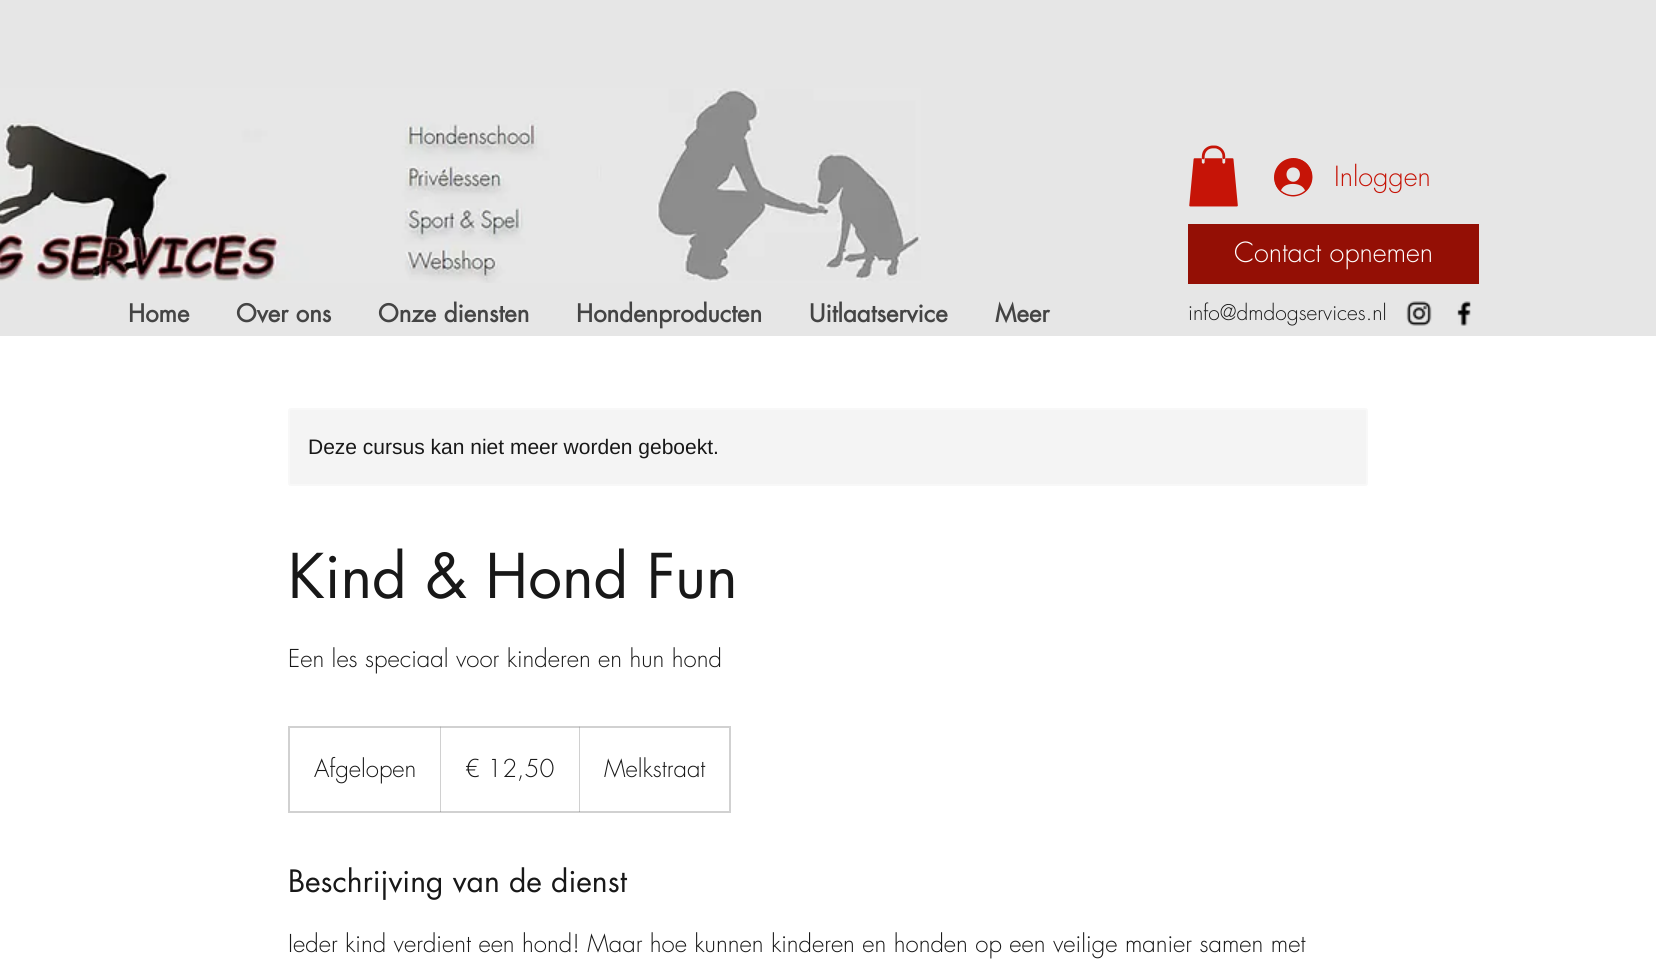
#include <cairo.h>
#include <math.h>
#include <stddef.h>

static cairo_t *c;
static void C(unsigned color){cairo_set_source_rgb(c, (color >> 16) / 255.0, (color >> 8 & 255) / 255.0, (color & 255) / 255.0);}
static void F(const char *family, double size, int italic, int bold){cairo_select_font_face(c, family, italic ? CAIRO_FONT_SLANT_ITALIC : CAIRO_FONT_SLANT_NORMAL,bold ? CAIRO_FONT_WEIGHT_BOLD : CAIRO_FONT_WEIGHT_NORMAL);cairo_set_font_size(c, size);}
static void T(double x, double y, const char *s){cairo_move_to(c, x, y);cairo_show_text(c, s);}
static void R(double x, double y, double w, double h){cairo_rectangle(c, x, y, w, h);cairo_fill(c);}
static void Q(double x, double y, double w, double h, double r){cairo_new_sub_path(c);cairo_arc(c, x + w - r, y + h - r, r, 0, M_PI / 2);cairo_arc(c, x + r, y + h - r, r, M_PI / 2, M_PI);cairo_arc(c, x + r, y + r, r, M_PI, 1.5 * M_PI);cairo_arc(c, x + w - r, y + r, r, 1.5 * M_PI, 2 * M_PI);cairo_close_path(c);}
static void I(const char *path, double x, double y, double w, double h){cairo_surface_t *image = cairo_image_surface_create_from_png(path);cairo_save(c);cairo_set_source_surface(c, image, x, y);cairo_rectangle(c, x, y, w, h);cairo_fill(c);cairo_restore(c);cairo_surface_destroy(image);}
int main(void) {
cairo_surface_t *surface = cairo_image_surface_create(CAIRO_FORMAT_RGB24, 1656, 967);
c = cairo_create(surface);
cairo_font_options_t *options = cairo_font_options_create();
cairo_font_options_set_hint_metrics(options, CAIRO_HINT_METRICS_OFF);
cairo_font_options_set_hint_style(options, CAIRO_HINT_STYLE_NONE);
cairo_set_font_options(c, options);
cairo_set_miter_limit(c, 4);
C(0xffffff);
cairo_paint(c);
C(0xe6e6e6);
R(0,0,1656,336);
I("1.png",0,88,921,195);
I("2.png",1189,145,49,62);
I("3.png",1274,158,39,39);
F("futura Light",27,0,0);
C(0xc61407);
T(1334,186,"Inloggen");
C(0x940f05);
R(1188,224,291,60);
C(0xffffff);
T(1234,262,"Contact opnemen");
F("futura",24,0,1);
C(0x444444);
T(128,322,"Home");
T(236,322,"Over ons");
T(378,322,"Onze diensten");
T(576,322,"Hondenproducten");
T(809,322,"Uitlaatservice");
T(995,322,"Meer");
F("futura Light",21,0,0);
C(0x181818);
T(1188,320,"info@dmdogservices.nl");
I("4.png",1406,301,26,25);
I("5.png",1457,301,14,25);
C(0xf4f4f4);
Q(288,408,1080,78,3);
cairo_fill(c);
Q(289,409,1078,76,2);
cairo_set_source_rgba(c,1,1,1,0.4);
cairo_stroke(c);
F("Liberation Sans",21,0,0);
C(0x181818);
T(308,454,"Deze cursus kan niet meer worden geboekt.");
F("futura",60,0,0);
T(288,598,"Kind & Hond Fun");
F("futura Light",24,0,0);
T(288,667,"Een les speciaal voor kinderen en hun hond");
cairo_rectangle(c,289,727,441,85);
C(0xd1d1d1);
cairo_stroke(c);
C(0x181818);
T(314,777,"Afgelopen");
cairo_set_source_rgba(c,0.094,0.094,0.094,0.2);
cairo_new_path(c);
cairo_move_to(c,440,812);
cairo_line_to(c,440,726);
cairo_line_to(c,441,728);
cairo_line_to(c,441,812);
cairo_close_path(c);
cairo_fill(c);
C(0x181818);
T(465,777,"€ 12,50");
cairo_set_source_rgba(c,0.094,0.094,0.094,0.2);
cairo_new_path(c);
cairo_move_to(c,579,812);
cairo_line_to(c,579,726);
cairo_line_to(c,580,728);
cairo_line_to(c,580,812);
cairo_close_path(c);
cairo_fill(c);
C(0x181818);
T(604,777,"Melkstraat");
F("futura",30,0,0);
T(288,892,"Beschrijving van de dienst");
F("futura Light",24,0,0);
T(288,952,"Ieder kind verdient een hond! Maar hoe kunnen kinderen en honden op een veilige manier samen met");
cairo_surface_write_to_png(surface, "o.png");
cairo_font_options_destroy(options);
cairo_destroy(c);
cairo_surface_destroy(surface);
return 0;
}
